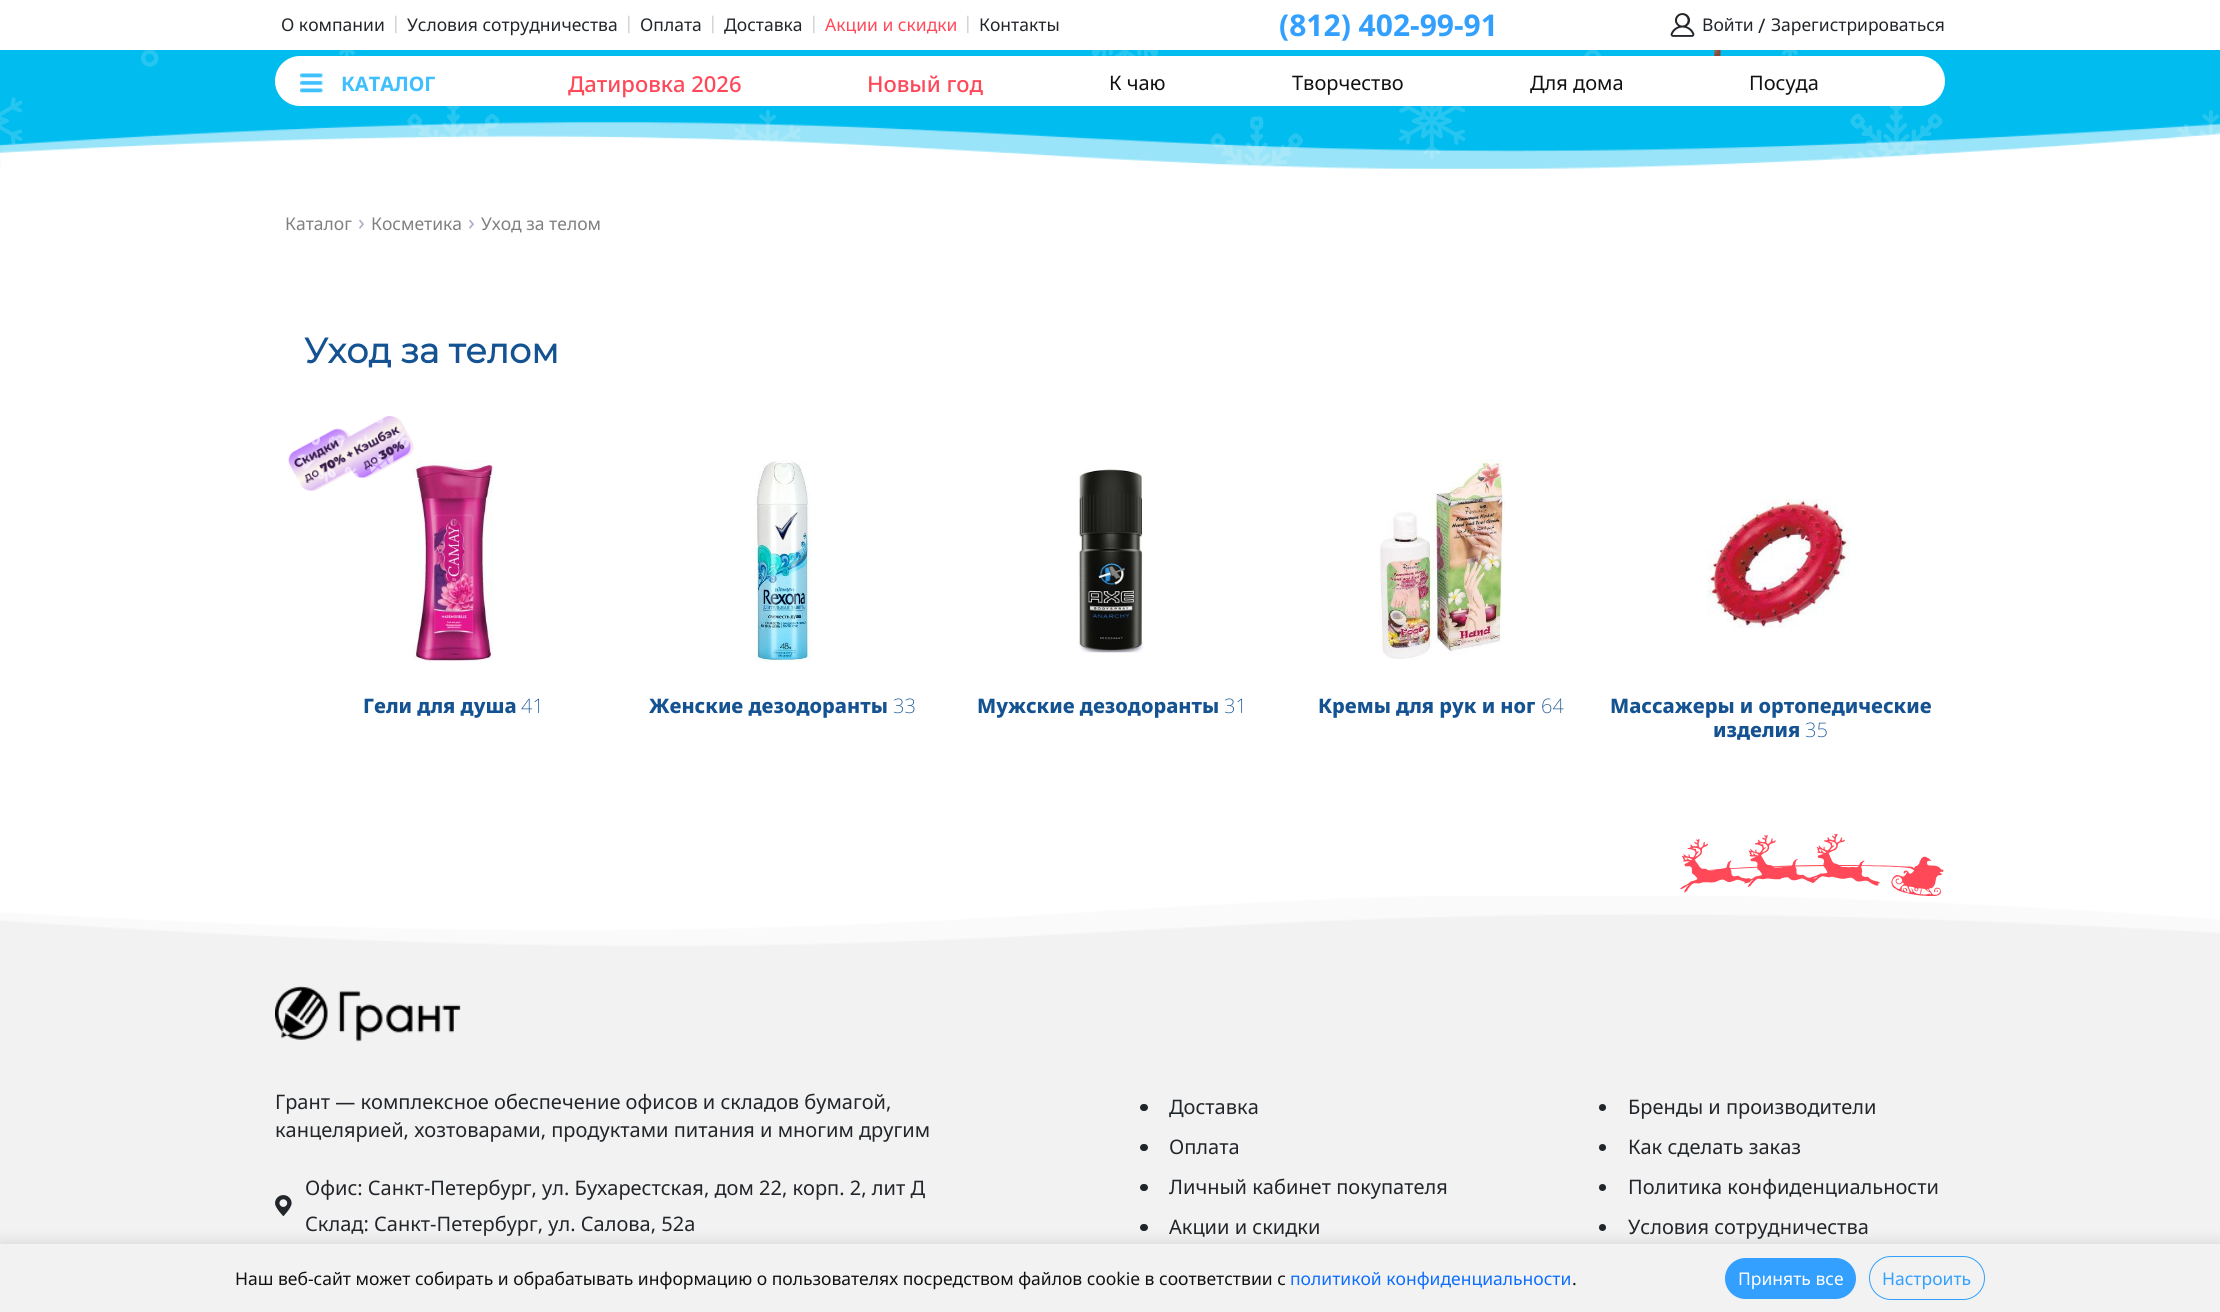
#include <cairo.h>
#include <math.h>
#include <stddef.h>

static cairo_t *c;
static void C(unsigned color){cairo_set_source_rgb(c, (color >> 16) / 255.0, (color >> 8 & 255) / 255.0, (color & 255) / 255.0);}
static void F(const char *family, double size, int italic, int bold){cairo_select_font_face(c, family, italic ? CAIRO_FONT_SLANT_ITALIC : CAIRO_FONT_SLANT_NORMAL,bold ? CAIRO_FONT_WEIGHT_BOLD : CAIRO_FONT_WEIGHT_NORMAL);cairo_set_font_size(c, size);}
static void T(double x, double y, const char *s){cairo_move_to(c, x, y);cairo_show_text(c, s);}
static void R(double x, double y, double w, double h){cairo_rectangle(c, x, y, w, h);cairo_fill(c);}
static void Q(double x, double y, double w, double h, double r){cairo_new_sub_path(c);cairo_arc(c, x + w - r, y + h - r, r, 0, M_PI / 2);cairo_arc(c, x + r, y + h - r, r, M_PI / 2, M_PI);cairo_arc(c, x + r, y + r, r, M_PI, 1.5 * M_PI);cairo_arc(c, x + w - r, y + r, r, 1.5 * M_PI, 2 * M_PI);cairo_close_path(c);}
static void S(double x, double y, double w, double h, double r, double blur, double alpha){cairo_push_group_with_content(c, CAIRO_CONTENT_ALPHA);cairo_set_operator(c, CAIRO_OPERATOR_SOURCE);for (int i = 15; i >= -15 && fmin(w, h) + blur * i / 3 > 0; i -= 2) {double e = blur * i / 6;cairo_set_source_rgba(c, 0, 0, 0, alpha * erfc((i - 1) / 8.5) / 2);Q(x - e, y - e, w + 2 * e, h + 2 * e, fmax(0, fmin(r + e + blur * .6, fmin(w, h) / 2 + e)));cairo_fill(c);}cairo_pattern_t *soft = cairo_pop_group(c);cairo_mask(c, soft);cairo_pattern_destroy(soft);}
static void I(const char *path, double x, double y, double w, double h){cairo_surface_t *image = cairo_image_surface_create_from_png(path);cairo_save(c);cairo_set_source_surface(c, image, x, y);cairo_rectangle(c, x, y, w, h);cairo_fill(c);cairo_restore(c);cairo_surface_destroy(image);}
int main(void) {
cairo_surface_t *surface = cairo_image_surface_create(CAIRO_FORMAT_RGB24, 2220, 1312);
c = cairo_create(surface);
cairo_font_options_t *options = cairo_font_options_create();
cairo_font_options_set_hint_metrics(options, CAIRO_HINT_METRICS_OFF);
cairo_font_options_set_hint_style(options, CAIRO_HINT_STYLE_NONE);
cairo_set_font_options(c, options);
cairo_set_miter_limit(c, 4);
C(0xffffff);
cairo_paint(c);
F("Noto Sans",17.5,0,0);
C(0x22262a);
T(281,31,"О компании");
C(0xcccccc);
T(391,29,"|");
C(0x22262a);
T(407,31,"Условия сотрудничества");
C(0xcccccc);
T(624,29,"|");
C(0x22262a);
T(640,31,"Оплата");
C(0xcccccc);
T(708,29,"|");
C(0x22262a);
T(724,31,"Доставка");
C(0xcccccc);
T(809,29,"|");
C(0xff4858);
T(825,31,"Акции и скидки");
C(0xcccccc);
T(963,29,"|");
C(0x22262a);
T(979,31,"Контакты");
F("Noto Sans",30,0,1);
C(0x33a0ff);
T(1279,36,"(812) 402-99-91");
I("1.png",1670,13,25,25);
F("Noto Sans",17.5,0,0);
C(0x22262a);
T(1702,31,"Войти");
F("Noto Sans",20,0,0);
T(1758,33,"/");
F("Noto Sans",17.5,0,0);
T(1771,31,"Зарегистрироваться");
C(0x01bcef);
R(0,50,2220,119);
I("2.png",0,50,2220,117);
I("3.png",1714,50,7,6);
C(0xffffff);
Q(275,56,1670,50,25);
cairo_fill(c);
I("4.png",300,73,23,20);
F("Noto Sans",20,0,1);
C(0x40bfff);
T(341,91,"КАТАЛОГ");
F("Noto Sans Medium",22,0,0);
C(0xff4858);
T(568,92,"Датировка 2026");
T(867,92,"Новый год");
F("Noto Sans",20,0,0);
C(0x111111);
T(1109,90,"К чаю");
T(1292,90,"Творчество");
T(1530,90,"Для дома");
T(1749,90,"Посуда");
I("5.png",0,122,2220,47);
F("Noto Sans",17.5,0,0);
C(0x808080);
T(285,230,"Каталог");
F("Noto Sans",22,0,0);
C(0xa8afc2);
T(358,230,"›");
F("Noto Sans",17.5,0,0);
C(0x808080);
T(371,230,"Косметика");
F("Noto Sans",22,0,0);
C(0xa8afc2);
T(468,230,"›");
F("Noto Sans",17.5,0,0);
C(0x808080);
T(481,230,"Уход за телом");
F("Montserrat",35,0,1);
C(0x145291);
T(304,363,"Уход за телом");
I("7.png",407,460,87,202);
I("6.png",288,416,126,75);
F("Noto Sans ExtraBold",20,0,0);
T(363,713,"Гели для душа");
F("Noto Sans ExtraLight",20,0,0);
T(521,713,"41");
I("8.png",754,460,57,202);
F("Noto Sans ExtraBold",20,0,0);
T(649,713,"Женские дезодоранты");
F("Noto Sans ExtraLight",20,0,0);
T(893,713,"33");
I("9.png",1078,469,68,184);
F("Noto Sans ExtraBold",20,0,0);
T(977,713,"Мужские дезодоранты");
F("Noto Sans ExtraLight",20,0,0);
T(1224,713,"31");
I("10.png",1379,459,126,200);
F("Noto Sans ExtraBold",20,0,0);
T(1318,713,"Кремы для рук и ног");
F("Noto Sans ExtraLight",20,0,0);
T(1541,713,"64");
I("11.png",1707,498,143,130);
F("Noto Sans ExtraBold",20,0,0);
T(1610,713,"Массажеры и ортопедические");
T(1713,737,"изделия");
F("Noto Sans ExtraLight",20,0,0);
T(1805,737,"35");
C(0xf2f2f2);
R(0,896,2220,348);
I("12.png",0,896,2220,50);
I("13.png",1680,834,264,62);
I("14.png",275,986,186,56);
F("Noto Sans",20,0,0);
C(0x22262a);
T(275,1109,"Грант — комплексное обеспечение офисов и складов бумагой,");
T(275,1137,"канцелярией, хозтоварами, продуктами питания и многим другим");
I("15.png",275,1195,17,21);
T(305,1195,"Офис: Санкт-Петербург, ул. Бухарестская, дом 22, корп. 2, лит Д");
T(305,1231,"Склад: Санкт-Петербург, ул. Салова, 52а");
C(0x212529);
Q(1140,1104,8,7,3.5);
cairo_fill(c);
C(0x22262a);
T(1169,1114,"Доставка");
C(0x212529);
Q(1140,1144,8,7,3.5);
cairo_fill(c);
C(0x22262a);
T(1169,1154,"Оплата");
C(0x212529);
Q(1140,1184,8,7,3.5);
cairo_fill(c);
C(0x22262a);
T(1169,1194,"Личный кабинет покупателя");
C(0x212529);
Q(1140,1224,8,7,3.5);
cairo_fill(c);
C(0x22262a);
T(1169,1234,"Акции и скидки");
C(0x212529);
cairo_new_path(c);
cairo_arc(c,1602.5,1107.5,3.5,0,2 * M_PI);
cairo_fill(c);
C(0x22262a);
T(1628,1114,"Бренды и производители");
C(0x212529);
cairo_new_path(c);
cairo_arc(c,1602.5,1147.5,3.5,0,2 * M_PI);
cairo_fill(c);
C(0x22262a);
T(1628,1154,"Как сделать заказ");
C(0x212529);
cairo_new_path(c);
cairo_arc(c,1602.5,1187.5,3.5,0,2 * M_PI);
cairo_fill(c);
C(0x22262a);
T(1628,1194,"Политика конфиденциальности");
C(0x212529);
cairo_new_path(c);
cairo_arc(c,1602.5,1227.5,3.5,0,2 * M_PI);
cairo_fill(c);
C(0x22262a);
T(1628,1234,"Условия сотрудничества");
C(0x000000);
S(0,1241,2220,69,0,6,.1);
C(0xf2f2f2);
R(0,1244,2220,68);
F("Noto Sans",17.5,0,0);
C(0x111111);
T(235,1285,"Наш веб-сайт может собирать и обрабатывать информацию о пользователях посредством файлов cookie в соответствии с");
C(0x0d6efd);
T(1290,1285,"политикой конфиденциальности");
C(0x111111);
T(1572,1285,".");
C(0x33a0ff);
Q(1725,1258,131,41,20.5);
cairo_fill(c);
C(0xffffff);
T(1738,1285,"Принять все");
Q(1869.5,1256.5,115,43,21.5);
C(0x33a0ff);
cairo_set_line_width(c,1);
cairo_stroke(c);
T(1882,1285,"Настроить");
cairo_surface_write_to_png(surface, "o.png");
cairo_font_options_destroy(options);
cairo_destroy(c);
cairo_surface_destroy(surface);
return 0;
}
